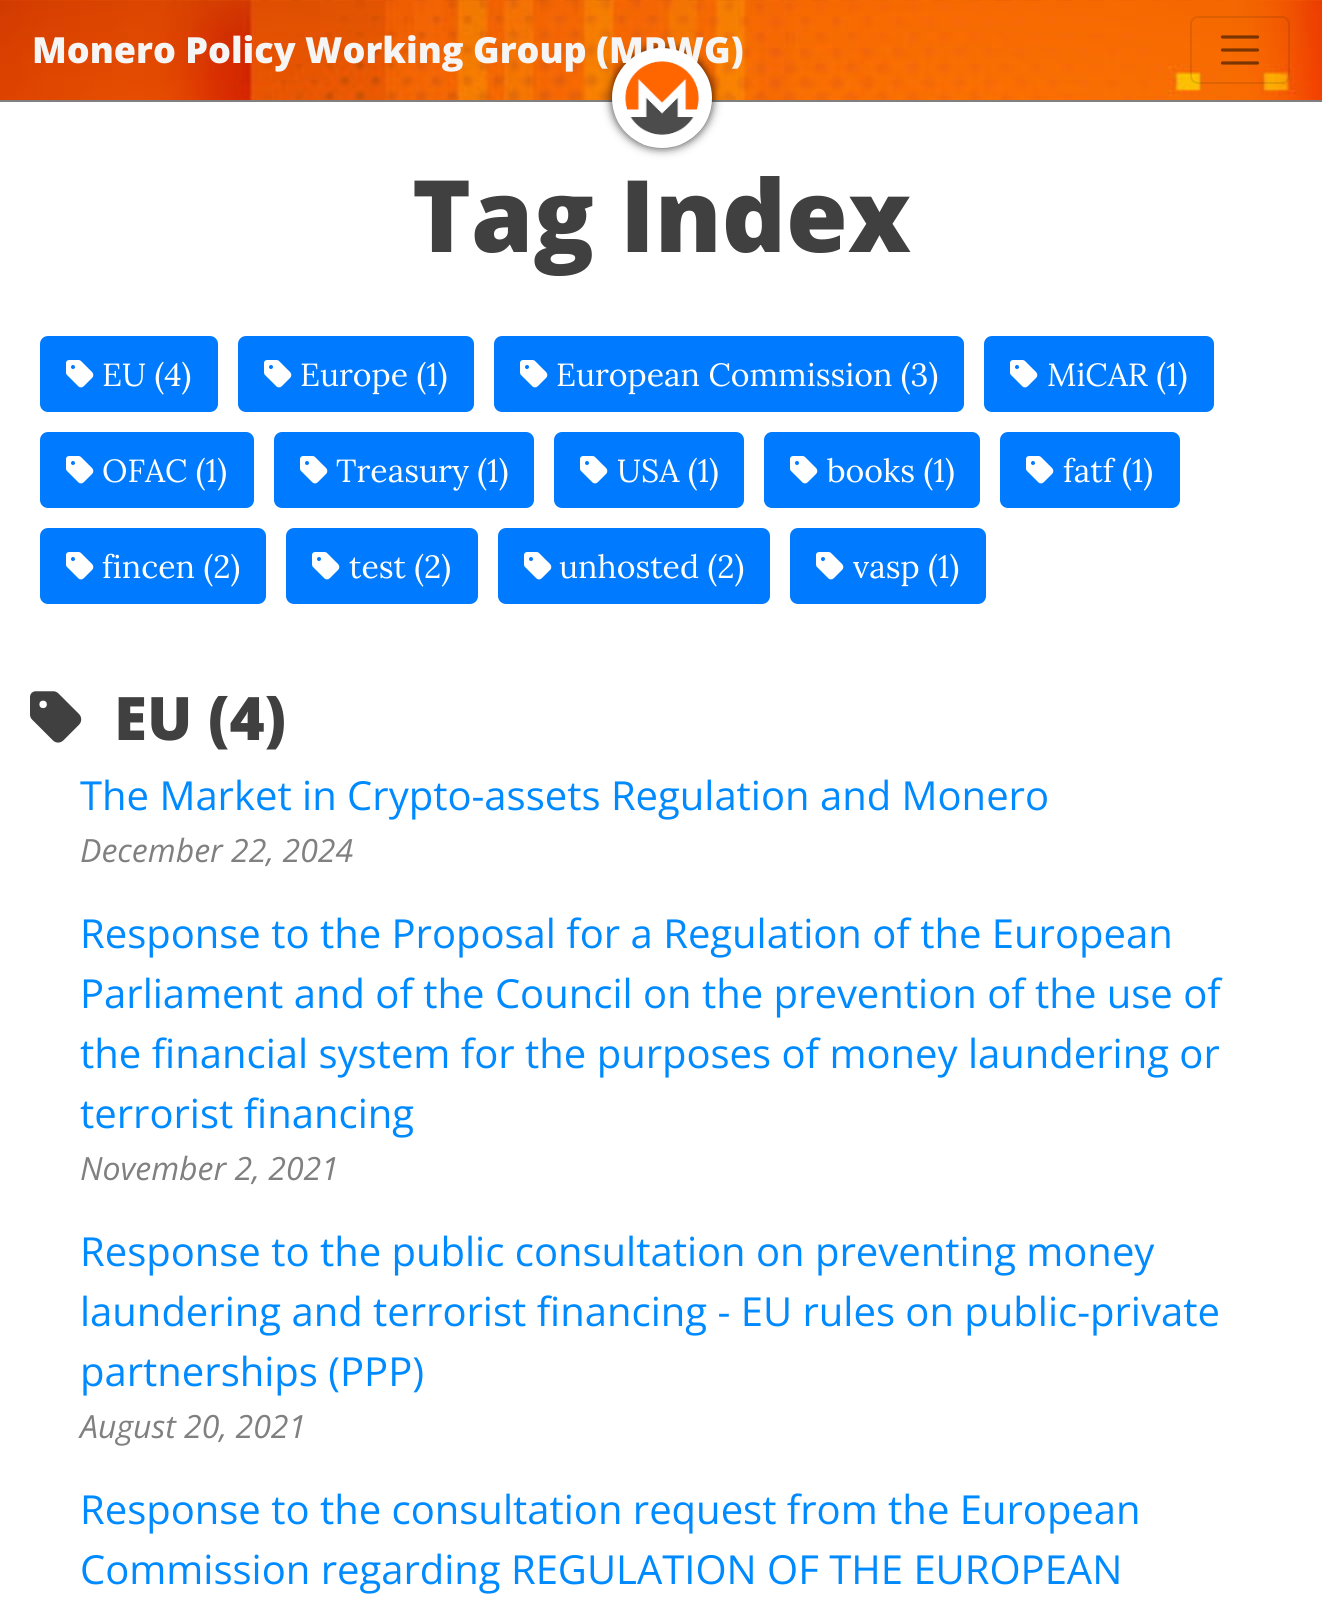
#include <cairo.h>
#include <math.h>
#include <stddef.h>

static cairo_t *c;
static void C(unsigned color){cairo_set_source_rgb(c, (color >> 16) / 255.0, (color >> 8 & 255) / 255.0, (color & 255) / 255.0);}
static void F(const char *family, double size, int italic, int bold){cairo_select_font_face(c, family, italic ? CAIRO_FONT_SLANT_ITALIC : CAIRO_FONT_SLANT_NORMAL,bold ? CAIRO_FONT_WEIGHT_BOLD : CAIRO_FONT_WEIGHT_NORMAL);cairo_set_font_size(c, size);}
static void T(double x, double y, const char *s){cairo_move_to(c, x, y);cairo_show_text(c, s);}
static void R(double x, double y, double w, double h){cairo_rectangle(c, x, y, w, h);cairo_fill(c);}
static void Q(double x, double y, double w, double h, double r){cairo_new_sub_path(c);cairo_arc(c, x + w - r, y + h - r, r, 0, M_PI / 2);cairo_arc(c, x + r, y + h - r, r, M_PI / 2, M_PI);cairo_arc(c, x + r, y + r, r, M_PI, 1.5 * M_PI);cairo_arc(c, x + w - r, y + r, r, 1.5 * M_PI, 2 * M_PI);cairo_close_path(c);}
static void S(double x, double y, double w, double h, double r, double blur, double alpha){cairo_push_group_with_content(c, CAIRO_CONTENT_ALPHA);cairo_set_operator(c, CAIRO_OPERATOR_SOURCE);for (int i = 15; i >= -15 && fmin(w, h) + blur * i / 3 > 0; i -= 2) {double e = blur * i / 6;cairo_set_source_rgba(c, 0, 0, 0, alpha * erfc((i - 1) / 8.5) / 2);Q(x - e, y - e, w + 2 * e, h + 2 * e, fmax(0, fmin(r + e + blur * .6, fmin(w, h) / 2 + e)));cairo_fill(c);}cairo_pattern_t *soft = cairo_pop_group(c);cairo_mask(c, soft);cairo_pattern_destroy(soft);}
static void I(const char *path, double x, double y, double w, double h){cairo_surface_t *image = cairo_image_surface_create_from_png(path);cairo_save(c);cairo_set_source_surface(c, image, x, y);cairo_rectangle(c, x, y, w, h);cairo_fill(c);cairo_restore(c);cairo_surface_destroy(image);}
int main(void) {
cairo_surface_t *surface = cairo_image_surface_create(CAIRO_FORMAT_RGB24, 1322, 1605);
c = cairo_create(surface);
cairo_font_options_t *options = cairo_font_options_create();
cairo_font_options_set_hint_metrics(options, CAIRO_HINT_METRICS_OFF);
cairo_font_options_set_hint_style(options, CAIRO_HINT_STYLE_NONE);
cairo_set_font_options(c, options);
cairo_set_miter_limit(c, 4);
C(0xffffff);
cairo_paint(c);
I("1.png",0,0,1322,100);
C(0x808080);
R(0,100,1322,2);
C(0x000000);
S(612,48,100,100,50,5,.8);
F("Open Sans ExtraBold",36,0,0);
C(0xf5f5f5);
T(32,63,"Monero Policy Working Group (MPWG)");
I("2.png",612,48,100,100);
Q(1191,17,98,66,7);
cairo_set_source_rgba(c,0,0,0,0.1);
cairo_stroke(c);
cairo_new_path(c);
cairo_move_to(c,1222.5,37);
cairo_line_to(c,1257.5,37);
cairo_move_to(c,1222.5,50);
cairo_line_to(c,1257.5,50);
cairo_move_to(c,1222.5,63);
cairo_line_to(c,1257.5,63);
cairo_set_source_rgba(c,0,0,0,0.5);
cairo_set_line_width(c,3.2);
cairo_set_line_cap(c,CAIRO_LINE_CAP_ROUND);
cairo_stroke(c);
F("Open Sans ExtraBold",100,0,0);
C(0x404040);
T(412,252,"Tag Index");
C(0x007bff);
Q(41,337,176,74,7);
cairo_fill_preserve(c);
cairo_set_line_width(c,2);
cairo_set_line_cap(c,CAIRO_LINE_CAP_BUTT);
cairo_stroke(c);
I("3.png",66,360,28,28);
F("Lora",32,0,0);
C(0xffffff);
T(102,386,"EU (4)");
C(0x007bff);
Q(239,337,234,74,7);
cairo_fill_preserve(c);
cairo_stroke(c);
I("3.png",264,360,28,28);
C(0xffffff);
T(300,386,"Europe (1)");
C(0x007bff);
Q(495,337,468,74,7);
cairo_fill_preserve(c);
cairo_stroke(c);
I("3.png",520,360,28,28);
C(0xffffff);
T(556,386,"European Commission (3)");
C(0x007bff);
Q(985,337,228,74,7);
cairo_fill_preserve(c);
cairo_stroke(c);
I("3.png",1010,360,28,28);
C(0xffffff);
T(1047,386,"MiCAR (1)");
C(0x007bff);
Q(41,433,212,74,7);
cairo_fill_preserve(c);
cairo_stroke(c);
I("3.png",66,456,28,28);
C(0xffffff);
T(102,482,"OFAC (1)");
C(0x007bff);
Q(275,433,258,74,7);
cairo_fill_preserve(c);
cairo_stroke(c);
I("3.png",300,456,28,28);
C(0xffffff);
T(336,482,"Treasury (1)");
C(0x007bff);
Q(555,433,188,74,7);
cairo_fill_preserve(c);
cairo_stroke(c);
I("3.png",580,456,28,28);
C(0xffffff);
T(617,482,"USA (1)");
C(0x007bff);
Q(765,433,214,74,7);
cairo_fill_preserve(c);
cairo_stroke(c);
I("3.png",790,456,28,28);
C(0xffffff);
T(827,482,"books (1)");
C(0x007bff);
Q(1001,433,178,74,7);
cairo_fill_preserve(c);
cairo_stroke(c);
I("3.png",1026,456,28,28);
C(0xffffff);
T(1063,482,"fatf (1)");
C(0x007bff);
Q(41,529,224,74,7);
cairo_fill_preserve(c);
cairo_stroke(c);
I("3.png",66,552,28,28);
C(0xffffff);
T(102,578,"fincen (2)");
C(0x007bff);
Q(287,529,190,74,7);
cairo_fill_preserve(c);
cairo_stroke(c);
I("3.png",312,552,28,28);
C(0xffffff);
T(349,578,"test (2)");
C(0x007bff);
Q(499,529,270,74,7);
cairo_fill_preserve(c);
cairo_stroke(c);
I("3.png",524,552,28,28);
C(0xffffff);
T(559,578,"unhosted (2)");
C(0x007bff);
Q(791,529,194,74,7);
cairo_fill_preserve(c);
cairo_stroke(c);
I("3.png",816,552,28,28);
C(0xffffff);
T(853,578,"vasp (1)");
I("4.png",30,691,52,52);
F("Open Sans ExtraBold",60,0,0);
C(0x404040);
T(114,740,"EU (4)");
F("Open Sans",40,0,0);
C(0x008aff);
T(80,810,"The Market in Crypto-assets Regulation and Monero");
F("Open Sans",32,1,0);
C(0x808080);
T(80,862,"December 22, 2024");
F("Open Sans",40,0,0);
C(0x008aff);
T(80,948,"Response to the Proposal for a Regulation of the European");
T(80,1008,"Parliament and of the Council on the prevention of the use of");
T(80,1068,"the financial system for the purposes of money laundering or");
T(80,1128,"terrorist financing");
F("Open Sans",32,1,0);
C(0x808080);
T(80,1180,"November 2, 2021");
F("Open Sans",40,0,0);
C(0x008aff);
T(80,1266,"Response to the public consultation on preventing money");
T(80,1326,"laundering and terrorist financing - EU rules on public-private");
T(80,1386,"partnerships (PPP)");
F("Open Sans",32,1,0);
C(0x808080);
T(80,1438,"August 20, 2021");
F("Open Sans",40,0,0);
C(0x008aff);
T(80,1524,"Response to the consultation request from the European");
T(80,1584,"Commission regarding REGULATION OF THE EUROPEAN");
cairo_surface_write_to_png(surface, "o.png");
cairo_font_options_destroy(options);
cairo_destroy(c);
cairo_surface_destroy(surface);
return 0;
}
